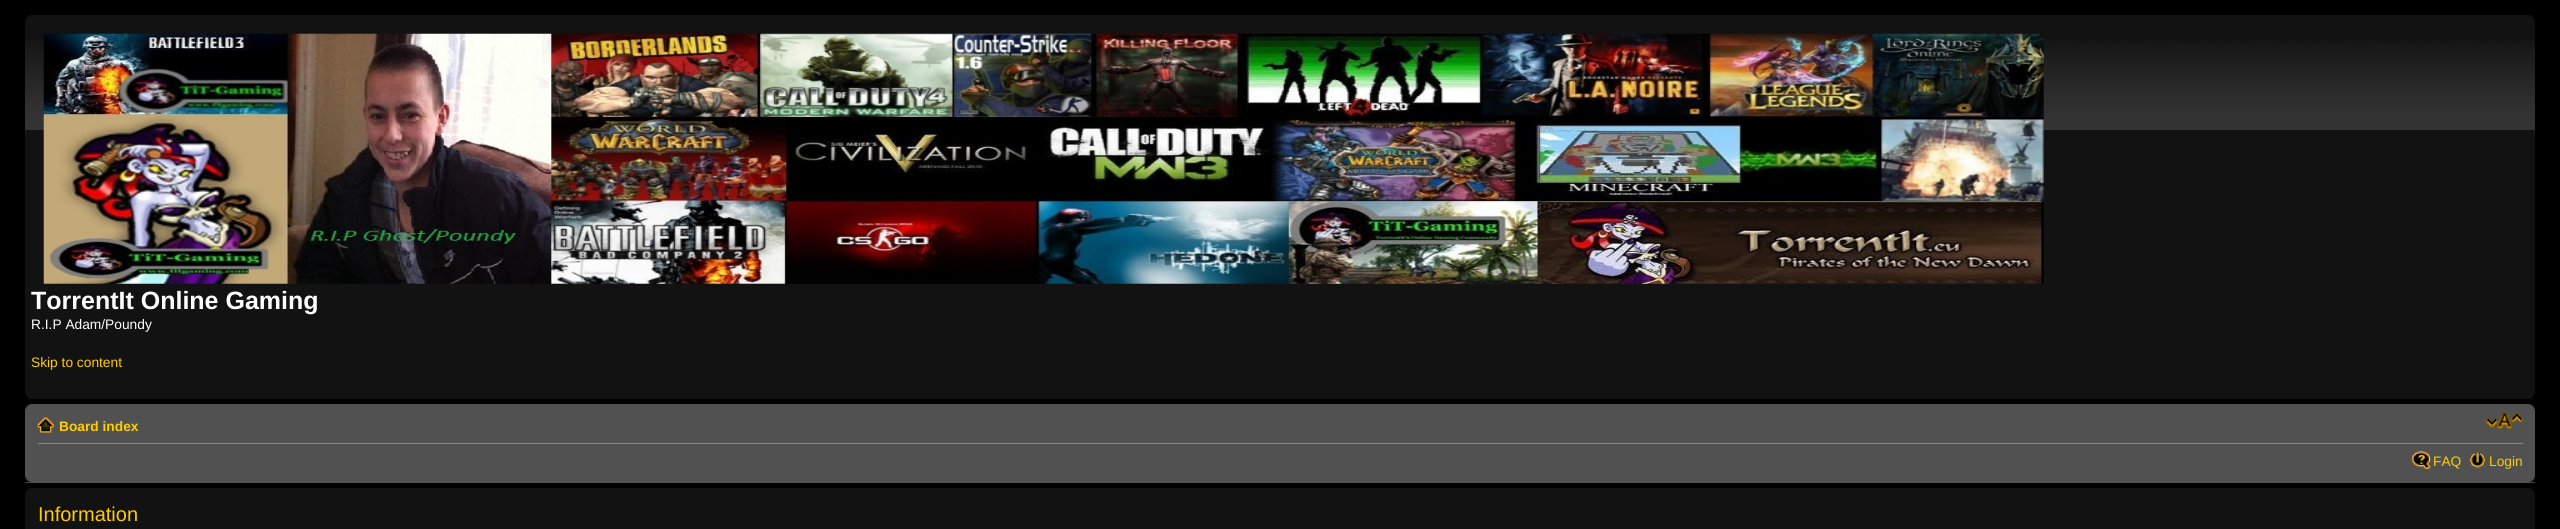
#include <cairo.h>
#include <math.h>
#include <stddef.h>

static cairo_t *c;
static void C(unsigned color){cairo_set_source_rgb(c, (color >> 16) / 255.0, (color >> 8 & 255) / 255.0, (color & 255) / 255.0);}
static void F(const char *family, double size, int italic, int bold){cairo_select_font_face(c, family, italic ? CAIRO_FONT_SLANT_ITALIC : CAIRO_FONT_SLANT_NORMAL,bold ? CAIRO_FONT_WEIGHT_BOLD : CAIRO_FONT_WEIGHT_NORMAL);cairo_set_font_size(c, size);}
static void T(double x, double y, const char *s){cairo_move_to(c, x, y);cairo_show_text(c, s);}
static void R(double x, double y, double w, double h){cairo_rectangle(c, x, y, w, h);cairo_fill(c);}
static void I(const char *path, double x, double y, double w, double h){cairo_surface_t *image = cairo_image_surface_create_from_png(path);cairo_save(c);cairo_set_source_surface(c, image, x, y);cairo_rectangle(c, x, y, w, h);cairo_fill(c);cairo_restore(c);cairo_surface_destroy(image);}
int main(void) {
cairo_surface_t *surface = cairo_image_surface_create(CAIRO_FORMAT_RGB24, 2560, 529);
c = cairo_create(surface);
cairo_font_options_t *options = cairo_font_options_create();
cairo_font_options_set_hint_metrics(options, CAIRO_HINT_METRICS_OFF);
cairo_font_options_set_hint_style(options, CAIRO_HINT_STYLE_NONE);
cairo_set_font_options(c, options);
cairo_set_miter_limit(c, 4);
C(0x000000);
cairo_paint(c);
C(0x121212);
R(25,15,2510,384);
I("1.png",25,41,2510,89);
I("2.png",25,15,6,6);
I("3.png",2529,15,6,6);
I("4.png",43,33,2001,251);
F("Liberation Sans",25,0,1);
C(0xffffff);
T(31,309,"TorrentIt Online Gaming");
F("Liberation Sans",13.75,0,0);
T(31,329,"R.I.P Adam/Poundy");
C(0xffcc00);
T(31,367,"Skip to content");
I("5.png",25,393,5,6);
I("6.png",2530,393,5,6);
C(0x515151);
R(25,404,2510,79);
I("7.png",25,404,7,6);
I("8.png",2528,404,7,6);
C(0x888888);
R(38,443,2485,1);
I("9.png",37,417,17,16);
F("Liberation Sans",13.75,0,1);
C(0xffcc00);
T(59,431,"Board index");
I("10.png",2486,413,37,16);
I("11.png",2411,451,21,18);
F("Liberation Sans",13.75,0,0);
T(2433,466,"FAQ");
I("12.png",2469,452,17,16);
T(2489,466,"Login");
I("13.png",25,476,7,7);
I("14.png",2529,476,6,7);
C(0x121212);
R(25,488,2510,41);
I("15.png",25,488,5,5);
I("16.png",2530,488,5,5);
F("Liberation Sans",20,0,0);
C(0xffcc00);
T(38,521,"Information");
cairo_surface_write_to_png(surface, "o.png");
cairo_font_options_destroy(options);
cairo_destroy(c);
cairo_surface_destroy(surface);
return 0;
}
